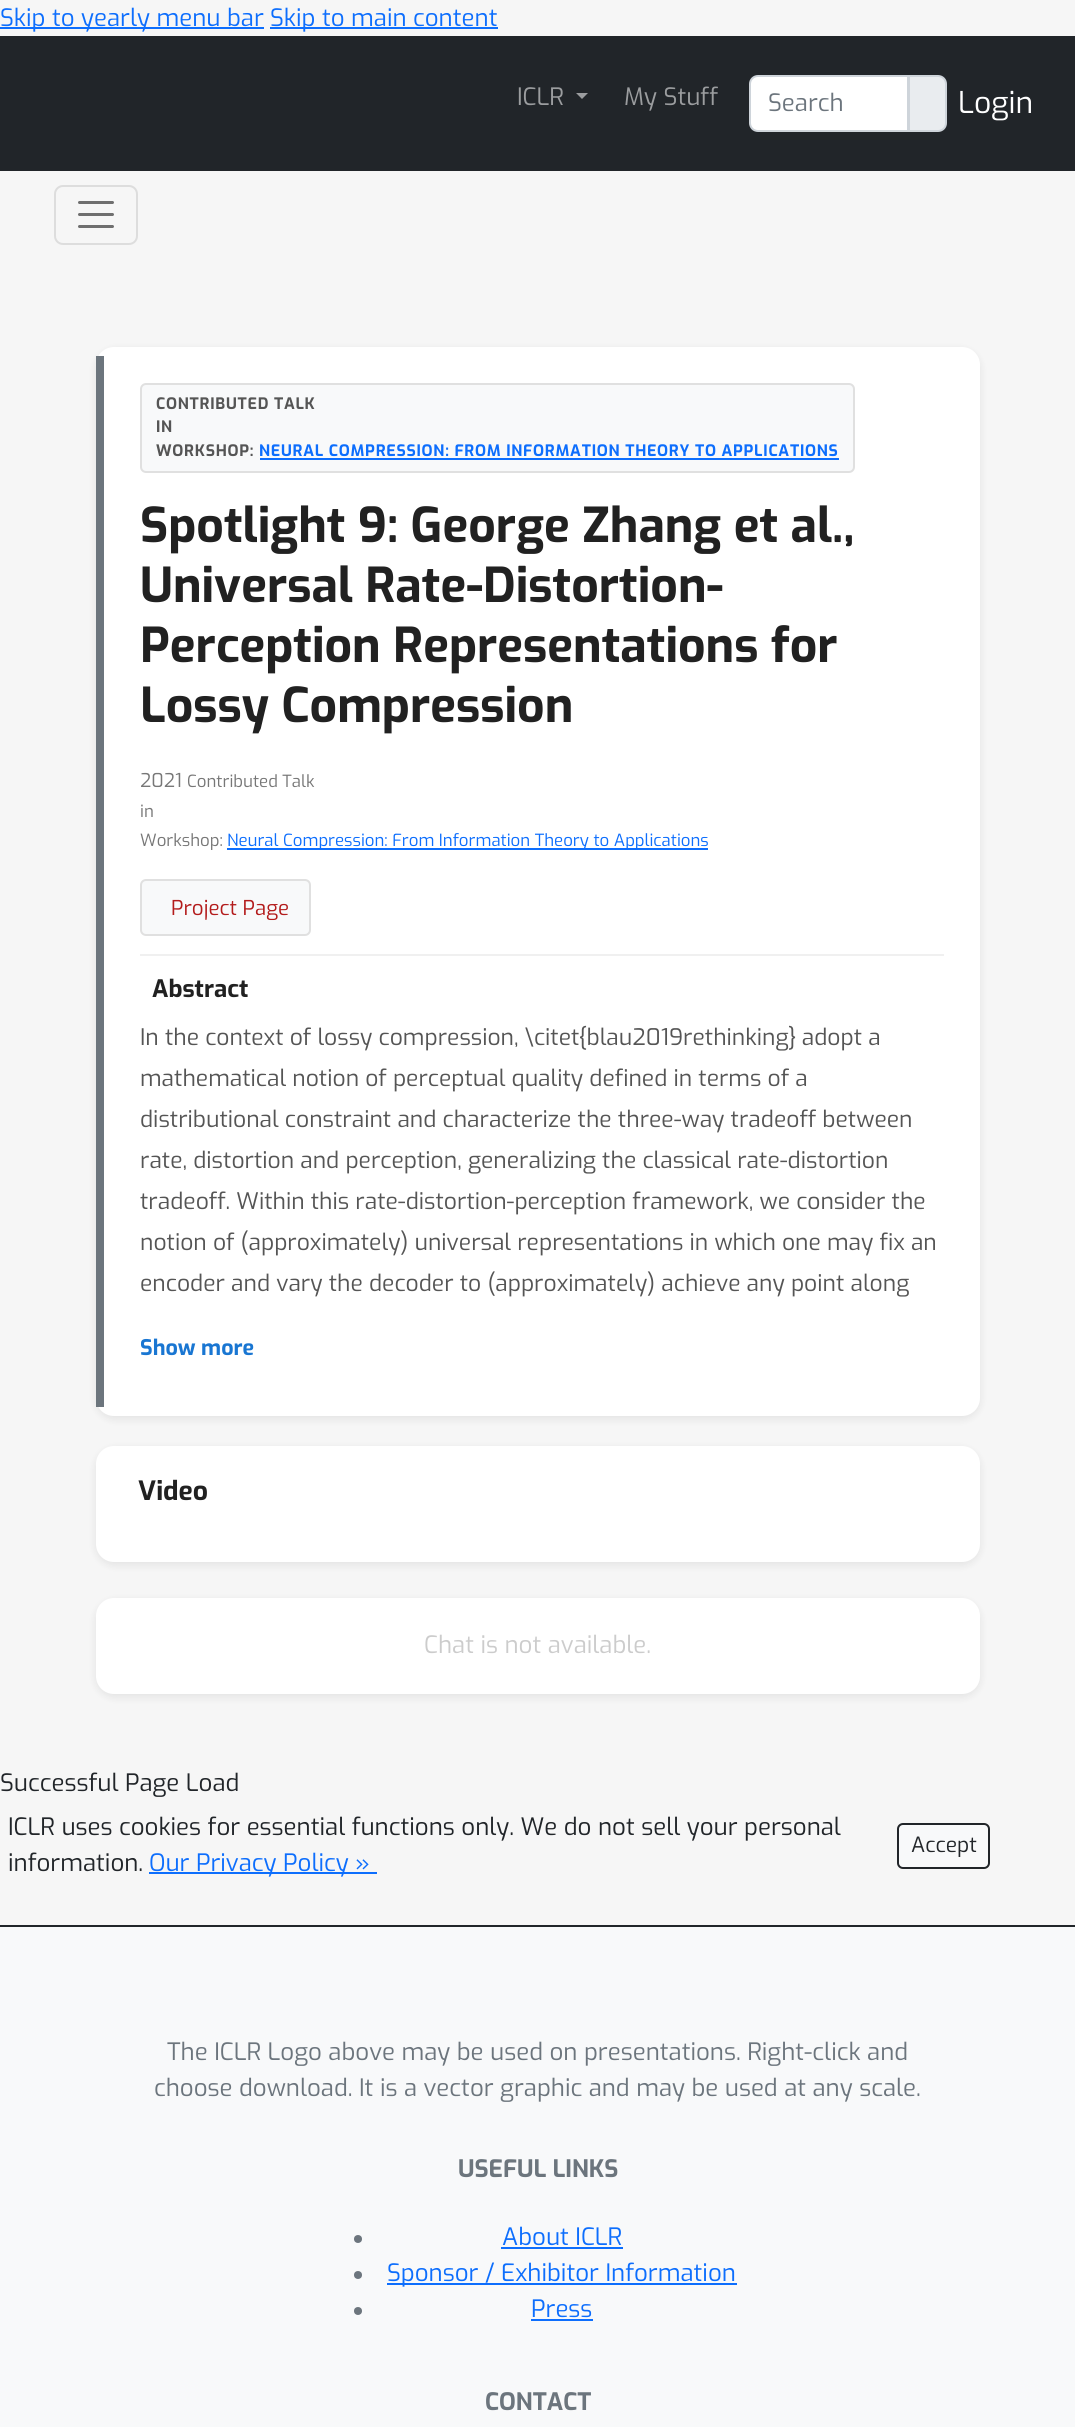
#include <cairo.h>
#include <math.h>
#include <stddef.h>

static cairo_t *c;
static void C(unsigned color){cairo_set_source_rgb(c, (color >> 16) / 255.0, (color >> 8 & 255) / 255.0, (color & 255) / 255.0);}
static void F(const char *family, double size, int italic, int bold){cairo_select_font_face(c, family, italic ? CAIRO_FONT_SLANT_ITALIC : CAIRO_FONT_SLANT_NORMAL,bold ? CAIRO_FONT_WEIGHT_BOLD : CAIRO_FONT_WEIGHT_NORMAL);cairo_set_font_size(c, size);}
static void T(double x, double y, const char *s){cairo_move_to(c, x, y);cairo_show_text(c, s);}
static void L(double x, double y, const char *s, double letter, double word){cairo_move_to(c, x, y);while (*s) {char ch[5] = {0};int n = 0;do ch[n++] = *s++; while ((*s & 0xC0) == 0x80);cairo_show_text(c, ch);cairo_rel_move_to(c, letter + word * (*ch == ' '), 0);}}
static void R(double x, double y, double w, double h){cairo_rectangle(c, x, y, w, h);cairo_fill(c);}
static void Q(double x, double y, double w, double h, double r){cairo_new_sub_path(c);cairo_arc(c, x + w - r, y + h - r, r, 0, M_PI / 2);cairo_arc(c, x + r, y + h - r, r, M_PI / 2, M_PI);cairo_arc(c, x + r, y + r, r, M_PI, 1.5 * M_PI);cairo_arc(c, x + w - r, y + r, r, 1.5 * M_PI, 2 * M_PI);cairo_close_path(c);}
static void S(double x, double y, double w, double h, double r, double blur, double alpha){cairo_push_group_with_content(c, CAIRO_CONTENT_ALPHA);cairo_set_operator(c, CAIRO_OPERATOR_SOURCE);for (int i = 15; i >= -15 && fmin(w, h) + blur * i / 3 > 0; i -= 2) {double e = blur * i / 6;cairo_set_source_rgba(c, 0, 0, 0, alpha * erfc((i - 1) / 8.5) / 2);Q(x - e, y - e, w + 2 * e, h + 2 * e, fmax(0, fmin(r + e + blur * .6, fmin(w, h) / 2 + e)));cairo_fill(c);}cairo_pattern_t *soft = cairo_pop_group(c);cairo_mask(c, soft);cairo_pattern_destroy(soft);}
int main(void) {
cairo_surface_t *surface = cairo_image_surface_create(CAIRO_FORMAT_RGB24, 1075, 2427);
c = cairo_create(surface);
cairo_font_options_t *options = cairo_font_options_create();
cairo_font_options_set_hint_metrics(options, CAIRO_HINT_METRICS_OFF);
cairo_font_options_set_hint_style(options, CAIRO_HINT_STYLE_NONE);
cairo_set_font_options(c, options);
cairo_set_miter_limit(c, 4);
C(0xf6f6f6);
cairo_paint(c);
C(0x0d6efd);
R(0,27,264,2);
F("Exo",24,0,0);
T(0,26,"Skip to yearly menu bar");
R(270,27,228,2);
T(270,26,"Skip to main content");
C(0x212529);
R(0,36,1075,135);
C(0x9b9d9f);
T(517,105,"ICLR");
cairo_new_path(c);
cairo_move_to(c,576,93);
cairo_line_to(c,588,93);
cairo_line_to(c,582,99);
cairo_close_path(c);
cairo_fill(c);
T(624,105,"My Stuff");
C(0xe9ecef);
cairo_new_path(c);
cairo_move_to(c,909,76);
cairo_line_to(c,938,76);
cairo_curve_to(c,942.5,76,946,79.5,946,84);
cairo_line_to(c,946,123);
cairo_curve_to(c,946,127.5,942.5,131,938,131);
cairo_line_to(c,909,131);
cairo_close_path(c);
cairo_fill_preserve(c);
C(0xced4da);
cairo_stroke(c);
C(0xffffff);
cairo_new_path(c);
cairo_move_to(c,758,76);
cairo_line_to(c,908,76);
cairo_line_to(c,908,131);
cairo_line_to(c,758,131);
cairo_curve_to(c,753.5,131,750,127.5,750,123);
cairo_line_to(c,750,84);
cairo_curve_to(c,750,79.5,753.5,76,758,76);
cairo_close_path(c);
cairo_fill_preserve(c);
C(0xced4da);
cairo_stroke(c);
C(0x6c757d);
T(768,111,"Search");
F("Exo",30,0,0);
C(0xffffff);
T(958,113,"Login");
Q(55,186,82,58,8);
C(0xdddddd);
cairo_stroke(c);
cairo_new_path(c);
cairo_move_to(c,79.5,202.5);
cairo_line_to(c,112.5,202.5);
cairo_move_to(c,79.5,214.5);
cairo_line_to(c,112.5,214.5);
cairo_move_to(c,79.5,226.5);
cairo_line_to(c,112.5,226.5);
C(0x6f6f6f);
cairo_set_line_width(c,3);
cairo_set_line_cap(c,CAIRO_LINE_CAP_ROUND);
cairo_stroke(c);
C(0x000000);
S(96,350,884,1069,18,4.5,.08);
C(0xffffff);
Q(96,347,884,1069,18);
cairo_fill(c);
C(0x6c757d);
R(96,356,8,1051);
C(0xf8f9fa);
Q(141,384,713,88,5);
cairo_fill_preserve(c);
C(0xe0e0e0);
cairo_set_line_width(c,2);
cairo_set_line_cap(c,CAIRO_LINE_CAP_BUTT);
cairo_stroke(c);
F("Exo",15.75,0,1);
C(0x555555);
L(156,409,"CONTRIBUTED TALK",.75,0);
L(156,432,"IN",.75,0);
L(156,456,"WORKSHOP:",.75,0);
C(0x0d6efd);
L(259,456,"NEURAL COMPRESSION: FROM INFORMATION THEORY TO APPLICATIONS",.75,0);
R(260,458,579,2);
F("Exo",48,0,1);
C(0x212121);
T(140,542,"Spotlight 9: George Zhang et al.,");
T(140,602,"Universal Rate-Distortion-");
T(140,662,"Perception Representations for");
T(140,722,"Lossy Compression");
F("Exo",19,0,0);
C(0x777777);
T(140,787,"2021");
F("Exo",16.8,0,0);
T(187,787,"Contributed Talk");
T(140,817,"in");
T(140,846,"Workshop:");
C(0x0d6efd);
R(227,848,481,2);
T(227,846,"Neural Compression: From Information Theory to Applications");
C(0xf8f9fa);
Q(141,880,169,55,5);
cairo_fill_preserve(c);
C(0xe0e0e0);
cairo_stroke(c);
F("Exo",20.5,0,0);
C(0xb31b1b);
T(171,915,"Project Page");
C(0xf0f0f0);
R(140,954,804,2);
F("Exo",24,0,1);
C(0x212121);
T(152,997,"Abstract");
F("Exo",22.8,0,0);
C(0x555555);
T(140,1045,"In the context of lossy compression, \\citet{blau2019rethinking} adopt a");
T(140,1086,"mathematical notion of perceptual quality defined in terms of a");
T(140,1127,"distributional constraint and characterize the three-way tradeoff between");
T(140,1168,"rate, distortion and perception, generalizing the classical rate-distortion");
T(140,1209,"tradeoff. Within this rate-distortion-perception framework, we consider the");
T(140,1250,"notion of (approximately) universal representations in which one may fix an");
T(140,1291,"encoder and vary the decoder to (approximately) achieve any point along");
F("Exo",21.5,0,1);
C(0x1976d2);
T(140,1355,"Show more");
C(0x000000);
S(96,1449,884,116,18,4.5,.08);
C(0xffffff);
Q(96,1446,884,116,18);
cairo_fill(c);
F("Exo",26.5,0,1);
C(0x212121);
T(138,1500,"Video");
C(0x000000);
S(96,1601,884,96,18,4.5,.08);
C(0xffffff);
Q(96,1598,884,96,18);
cairo_fill(c);
F("Exo",24,0,0);
C(0xcccccc);
T(424,1653,"Chat is not available.");
C(0x212529);
T(0,1791,"Successful Page Load");
T(8,1835,"ICLR uses cookies for essential functions only. We do not sell your personal");
T(8,1871,"information.");
C(0x0d6efd);
R(149,1872,228,2);
T(149,1871,"Our Privacy Policy »");
C(0xf8f9fa);
Q(898,1824,91,44,5);
cairo_fill_preserve(c);
C(0x212529);
cairo_stroke(c);
F("Exo",21,0,0);
T(911,1852,"Accept");
C(0xf8f9fa);
R(0,1927,1075,500);
C(0x212529);
R(0,1925,1075,2);
F("Exo",24,0,0);
C(0x6c757d);
T(167,2060,"The ICLR Logo above may be used on presentations. Right-click and");
T(154,2096,"choose download. It is a vector graphic and may be used at any scale.");
F("Exo",24,0,1);
T(458,2177,"USEFUL LINKS");
cairo_new_path(c);
cairo_arc(c,358,2239,4,0,2 * M_PI);
cairo_fill(c);
F("Exo",24,0,0);
C(0x0d6efd);
T(502,2245,"About ICLR");
R(501,2247,122,2);
C(0x6c757d);
cairo_new_path(c);
cairo_arc(c,358,2275,4,0,2 * M_PI);
cairo_fill(c);
C(0x0d6efd);
R(387,2283,350,2);
T(387,2281,"Sponsor / Exhibitor Information");
C(0x6c757d);
cairo_new_path(c);
cairo_arc(c,358,2311,4,0,2 * M_PI);
cairo_fill(c);
C(0x0d6efd);
T(531,2317,"Press");
R(531,2319,62,2);
F("Exo",24,0,1);
C(0x6c757d);
T(485,2410,"CONTACT");
cairo_surface_write_to_png(surface, "o.png");
cairo_font_options_destroy(options);
cairo_destroy(c);
cairo_surface_destroy(surface);
return 0;
}
